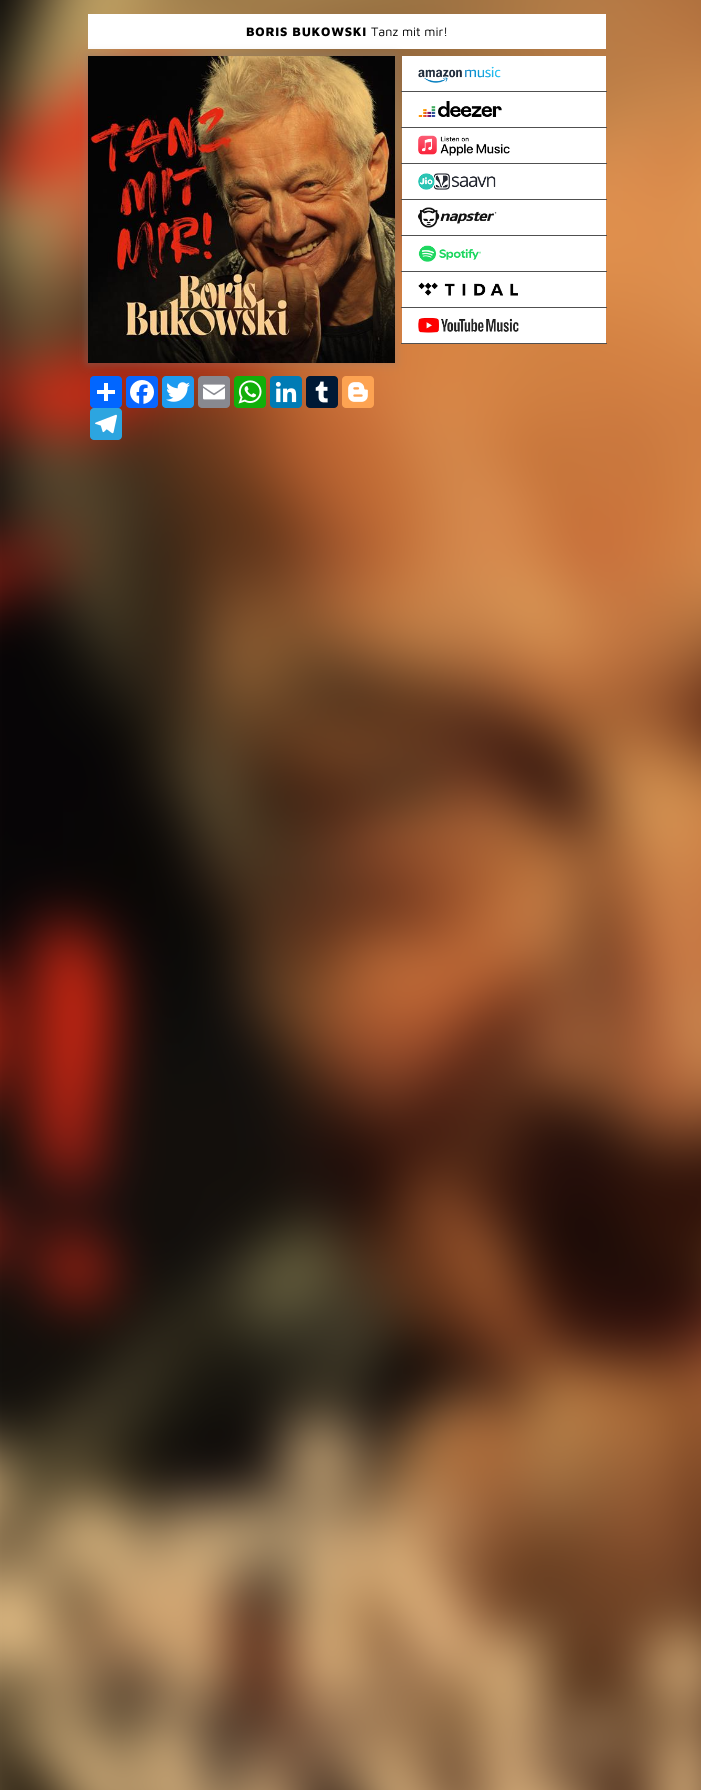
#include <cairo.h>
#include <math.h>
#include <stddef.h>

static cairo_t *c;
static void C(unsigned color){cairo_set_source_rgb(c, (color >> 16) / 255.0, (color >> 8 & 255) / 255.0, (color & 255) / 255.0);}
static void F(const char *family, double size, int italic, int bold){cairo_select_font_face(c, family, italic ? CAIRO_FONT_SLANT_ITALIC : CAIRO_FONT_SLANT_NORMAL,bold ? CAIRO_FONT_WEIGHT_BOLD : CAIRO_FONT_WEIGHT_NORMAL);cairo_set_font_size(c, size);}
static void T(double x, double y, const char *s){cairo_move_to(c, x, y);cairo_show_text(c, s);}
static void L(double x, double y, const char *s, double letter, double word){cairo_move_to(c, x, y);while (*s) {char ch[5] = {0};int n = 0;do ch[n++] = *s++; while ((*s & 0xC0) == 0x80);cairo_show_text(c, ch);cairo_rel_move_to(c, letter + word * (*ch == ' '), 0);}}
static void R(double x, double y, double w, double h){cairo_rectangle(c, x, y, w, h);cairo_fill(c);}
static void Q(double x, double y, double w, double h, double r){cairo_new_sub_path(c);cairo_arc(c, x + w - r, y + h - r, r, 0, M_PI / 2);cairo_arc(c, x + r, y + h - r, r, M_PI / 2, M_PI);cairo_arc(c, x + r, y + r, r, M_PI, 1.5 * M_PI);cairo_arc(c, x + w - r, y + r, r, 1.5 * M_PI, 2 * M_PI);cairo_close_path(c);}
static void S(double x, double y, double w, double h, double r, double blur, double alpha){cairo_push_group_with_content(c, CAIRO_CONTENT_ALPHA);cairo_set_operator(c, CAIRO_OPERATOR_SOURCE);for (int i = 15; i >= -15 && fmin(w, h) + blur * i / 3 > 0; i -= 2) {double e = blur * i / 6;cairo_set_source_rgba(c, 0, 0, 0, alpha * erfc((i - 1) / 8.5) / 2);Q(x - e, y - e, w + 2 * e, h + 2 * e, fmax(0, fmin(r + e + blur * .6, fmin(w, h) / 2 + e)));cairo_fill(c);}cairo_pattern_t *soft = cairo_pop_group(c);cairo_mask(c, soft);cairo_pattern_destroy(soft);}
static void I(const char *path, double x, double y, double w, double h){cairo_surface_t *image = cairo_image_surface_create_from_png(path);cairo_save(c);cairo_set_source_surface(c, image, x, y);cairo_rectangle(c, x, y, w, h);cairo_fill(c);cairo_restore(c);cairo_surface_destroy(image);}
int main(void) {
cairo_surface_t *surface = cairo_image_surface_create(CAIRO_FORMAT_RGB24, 701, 1790);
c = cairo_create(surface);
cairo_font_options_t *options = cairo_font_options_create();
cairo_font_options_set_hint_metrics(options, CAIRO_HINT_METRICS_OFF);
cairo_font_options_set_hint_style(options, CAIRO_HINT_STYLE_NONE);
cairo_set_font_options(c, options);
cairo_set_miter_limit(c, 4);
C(0xffffff);
cairo_paint(c);
I("1.png",0,0,701,1790);
C(0xffffff);
R(88,14,518,35);
F("Maven Pro ExtraBold",12.6,0,0);
C(0x000000);
L(246,36,"BORIS BUKOWSKI",.75,0);
F("Maven Pro",12.6,0,0);
T(371,36,"Tanz mit mir!");
C(0x7d7d7d);
S(88,56,307,307,0,5,.5);
I("2.png",88,56,307,307);
C(0x0166ff);
Q(90,376,32,32,4);
cairo_fill(c);
C(0xffffff);
R(104,383,4,18);
R(97,390,18,4);
C(0x0866ff);
Q(126,376,32,32,4);
cairo_fill(c);
I("3.png",130,380,24,24);
C(0x1d9bf0);
Q(162,376,32,32,4);
cairo_fill(c);
I("4.png",166,382,24,20);
C(0x888990);
Q(198,376,32,32,4);
cairo_fill(c);
I("5.png",203,384,22,16);
C(0x12af0a);
Q(234,376,32,32,4);
cairo_fill(c);
I("6.png",238,380,24,24);
C(0x007bb5);
Q(270,376,32,32,4);
cairo_fill(c);
I("7.png",275,381,22,22);
C(0x001935);
Q(306,376,32,32,4);
cairo_fill(c);
I("8.png",315,381,13,22);
C(0xfda352);
Q(342,376,32,32,4);
cairo_fill(c);
I("9.png",348,382,20,20);
C(0x2ca5e0);
Q(90,408,32,32,4);
cairo_fill(c);
I("10.png",95,414,22,20);
C(0xffffff);
R(402,56,204,35);
C(0x505050);
R(401,91,206,1);
I("11.png",418,66,83,17);
C(0xffffff);
R(402,92,204,35);
C(0x505050);
R(401,127,206,1);
I("12.png",418,101,84,16);
C(0xffffff);
R(402,128,204,35);
C(0x505050);
R(401,163,206,1);
I("13.png",418,135,92,21);
C(0xffffff);
R(402,164,204,35);
C(0x505050);
R(401,199,206,1);
I("14.png",418,173,78,17);
C(0xffffff);
R(402,200,204,35);
C(0x505050);
R(401,235,206,1);
I("15.png",418,207,79,21);
C(0xffffff);
R(402,236,204,35);
C(0x505050);
R(401,271,206,1);
I("16.png",418,245,63,17);
C(0xffffff);
R(402,272,204,35);
C(0x505050);
R(401,307,206,1);
I("17.png",418,282,100,14);
C(0xffffff);
R(402,308,204,35);
C(0x505050);
R(401,343,206,1);
I("18.png",418,317,101,16);
cairo_surface_write_to_png(surface, "o.png");
cairo_font_options_destroy(options);
cairo_destroy(c);
cairo_surface_destroy(surface);
return 0;
}
